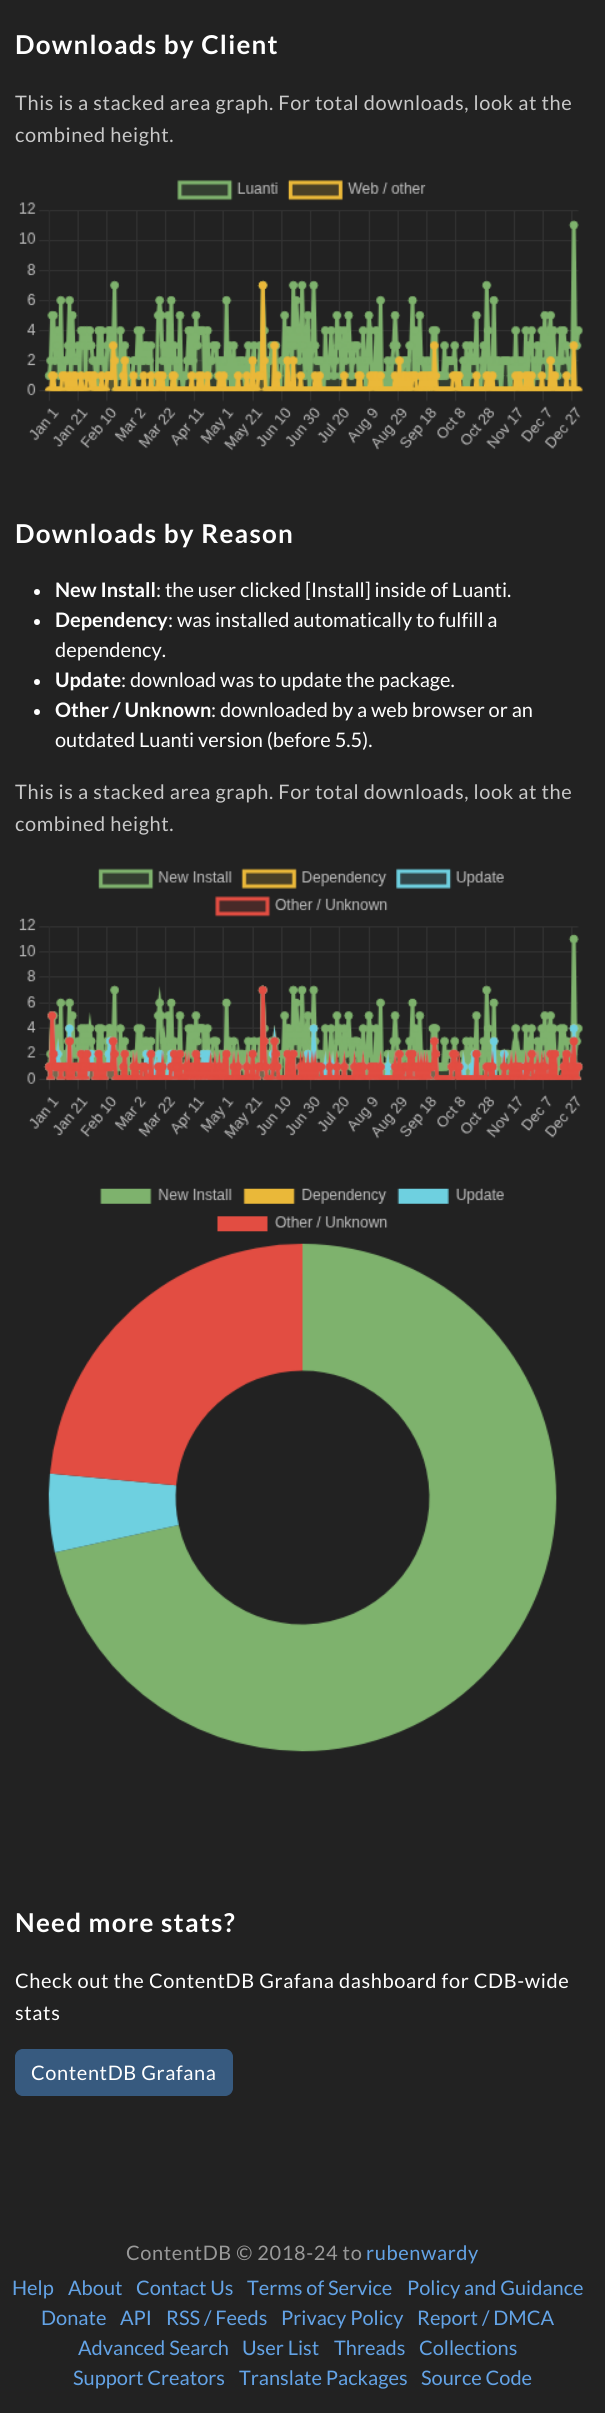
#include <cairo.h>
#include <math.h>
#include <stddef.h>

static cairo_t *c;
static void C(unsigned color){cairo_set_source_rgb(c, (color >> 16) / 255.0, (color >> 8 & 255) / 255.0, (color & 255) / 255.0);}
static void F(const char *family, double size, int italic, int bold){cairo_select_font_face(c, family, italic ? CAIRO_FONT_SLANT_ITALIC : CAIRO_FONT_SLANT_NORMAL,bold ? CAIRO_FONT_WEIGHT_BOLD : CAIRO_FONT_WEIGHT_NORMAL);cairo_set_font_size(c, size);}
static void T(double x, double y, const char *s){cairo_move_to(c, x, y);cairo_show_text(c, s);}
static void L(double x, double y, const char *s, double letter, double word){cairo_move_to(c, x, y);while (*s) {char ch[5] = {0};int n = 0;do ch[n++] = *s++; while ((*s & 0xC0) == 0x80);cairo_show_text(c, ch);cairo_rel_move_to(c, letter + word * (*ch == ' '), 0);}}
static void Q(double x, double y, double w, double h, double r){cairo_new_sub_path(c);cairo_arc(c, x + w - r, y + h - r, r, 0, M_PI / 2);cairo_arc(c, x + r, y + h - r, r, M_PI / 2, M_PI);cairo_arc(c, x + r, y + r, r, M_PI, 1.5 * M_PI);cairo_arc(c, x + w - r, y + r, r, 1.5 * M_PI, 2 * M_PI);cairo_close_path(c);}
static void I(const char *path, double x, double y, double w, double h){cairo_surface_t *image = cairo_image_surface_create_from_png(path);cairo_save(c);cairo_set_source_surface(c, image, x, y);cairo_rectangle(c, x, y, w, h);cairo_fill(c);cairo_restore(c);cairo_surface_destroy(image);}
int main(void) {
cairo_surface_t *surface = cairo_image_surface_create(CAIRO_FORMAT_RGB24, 605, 2413);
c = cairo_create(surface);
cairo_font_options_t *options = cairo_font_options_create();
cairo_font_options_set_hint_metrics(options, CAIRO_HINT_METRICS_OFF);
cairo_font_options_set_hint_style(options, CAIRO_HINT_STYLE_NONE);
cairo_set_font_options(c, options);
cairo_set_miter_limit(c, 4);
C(0x222222);
cairo_paint(c);
F("Lato",26,0,1);
C(0xffffff);
L(15,54,"Downloads by Client",1.25,0);
F("Lato",20,0,0);
C(0xc8c8c8);
L(15,110,"This is a stacked area graph. For total downloads, look at the",.6,0);
L(15,142,"combined height.",.6,0);
I("1.png",19,179,565,272);
F("Lato",26,0,1);
C(0xffffff);
L(15,543,"Downloads by Reason",1.25,0);
cairo_new_path(c);
cairo_arc(c,37,592,3,0,2 * M_PI);
cairo_fill(c);
F("Lato",20,0,1);
T(55,597,"New Install");
F("Lato",20,0,0);
T(156,597,": the user clicked [Install] inside of Luanti.");
cairo_new_path(c);
cairo_arc(c,37,622,3,0,2 * M_PI);
cairo_fill(c);
F("Lato",20,0,1);
T(55,627,"Dependency");
F("Lato",20,0,0);
T(168,627,": was installed automatically to fulfill a");
T(55,657,"dependency.");
cairo_new_path(c);
cairo_arc(c,37,682,3,0,2 * M_PI);
cairo_fill(c);
F("Lato",20,0,1);
T(55,687,"Update");
F("Lato",20,0,0);
T(121,687,": download was to update the package.");
cairo_new_path(c);
cairo_arc(c,37,712,3,0,2 * M_PI);
cairo_fill(c);
F("Lato",20,0,1);
T(55,717,"Other / Unknown");
F("Lato",20,0,0);
T(211,717,": downloaded by a web browser or an");
T(55,747,"outdated Luanti version (before 5.5).");
C(0xc8c8c8);
L(15,799,"This is a stacked area graph. For total downloads, look at the",.6,0);
L(15,831,"combined height.",.6,0);
I("2.png",19,868,565,271);
I("3.png",48,1188,509,564);
F("Lato",26,0,1);
C(0xffffff);
L(15,1932,"Need more stats?",1.25,0);
F("Lato",20,0,0);
L(15,1988,"Check out the ContentDB Grafana dashboard for CDB-wide",.6,0);
L(15,2020,"stats",.6,0);
C(0x375a7f);
Q(15.5,2049.5,217,46,7.5);
cairo_fill_preserve(c);
cairo_set_line_width(c,1);
cairo_stroke(c);
C(0xffffff);
L(31,2080,"ContentDB Grafana",.6,0);
C(0x999999);
L(126,2260,"ContentDB © 2018-24 to",.6,0);
C(0x63a3e6);
L(366,2260,"rubenwardy",.6,0);
T(12,2295,"Help");
T(68,2295,"About");
T(136,2295,"Contact Us");
T(247,2295,"Terms of Service");
T(407,2295,"Policy and Guidance");
T(41,2325,"Donate");
T(120,2325,"API");
T(166,2325,"RSS / Feeds");
T(281,2325,"Privacy Policy");
T(417,2325,"Report / DMCA");
T(78,2355,"Advanced Search");
T(242,2355,"User List");
T(334,2355,"Threads");
T(419,2355,"Collections");
T(73,2385,"Support Creators");
T(239,2385,"Translate Packages");
T(421,2385,"Source Code");
cairo_surface_write_to_png(surface, "o.png");
cairo_font_options_destroy(options);
cairo_destroy(c);
cairo_surface_destroy(surface);
return 0;
}
